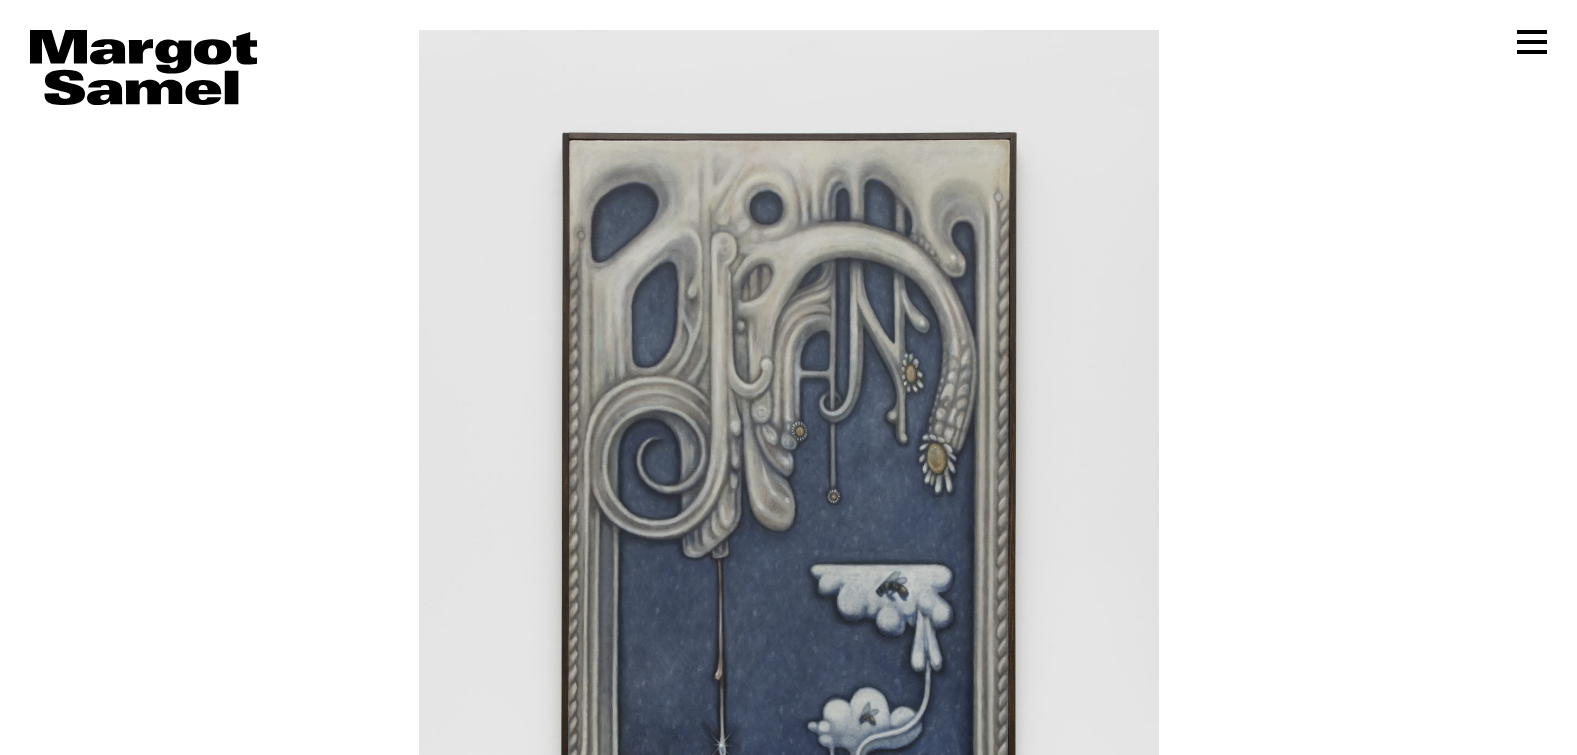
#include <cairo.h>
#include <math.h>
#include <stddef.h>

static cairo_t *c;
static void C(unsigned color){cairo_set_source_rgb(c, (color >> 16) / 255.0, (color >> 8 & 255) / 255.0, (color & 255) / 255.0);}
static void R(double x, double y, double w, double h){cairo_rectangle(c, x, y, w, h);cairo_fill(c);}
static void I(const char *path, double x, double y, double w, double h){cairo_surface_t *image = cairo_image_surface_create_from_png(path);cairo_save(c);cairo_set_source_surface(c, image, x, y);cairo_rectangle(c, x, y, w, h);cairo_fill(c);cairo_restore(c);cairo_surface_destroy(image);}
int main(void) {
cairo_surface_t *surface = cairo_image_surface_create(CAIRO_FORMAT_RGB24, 1577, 755);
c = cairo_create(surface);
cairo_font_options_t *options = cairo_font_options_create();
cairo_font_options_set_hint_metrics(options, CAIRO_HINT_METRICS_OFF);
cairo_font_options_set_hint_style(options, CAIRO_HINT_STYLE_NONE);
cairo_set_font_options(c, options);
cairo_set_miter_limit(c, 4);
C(0xffffff);
cairo_paint(c);
I("1.png",30,30,227,75);
C(0x000000);
R(1517,30,30,4);
R(1517,40,30,4);
R(1517,50,30,4);
I("2.png",419,30,740,725);
cairo_surface_write_to_png(surface, "o.png");
cairo_font_options_destroy(options);
cairo_destroy(c);
cairo_surface_destroy(surface);
return 0;
}
